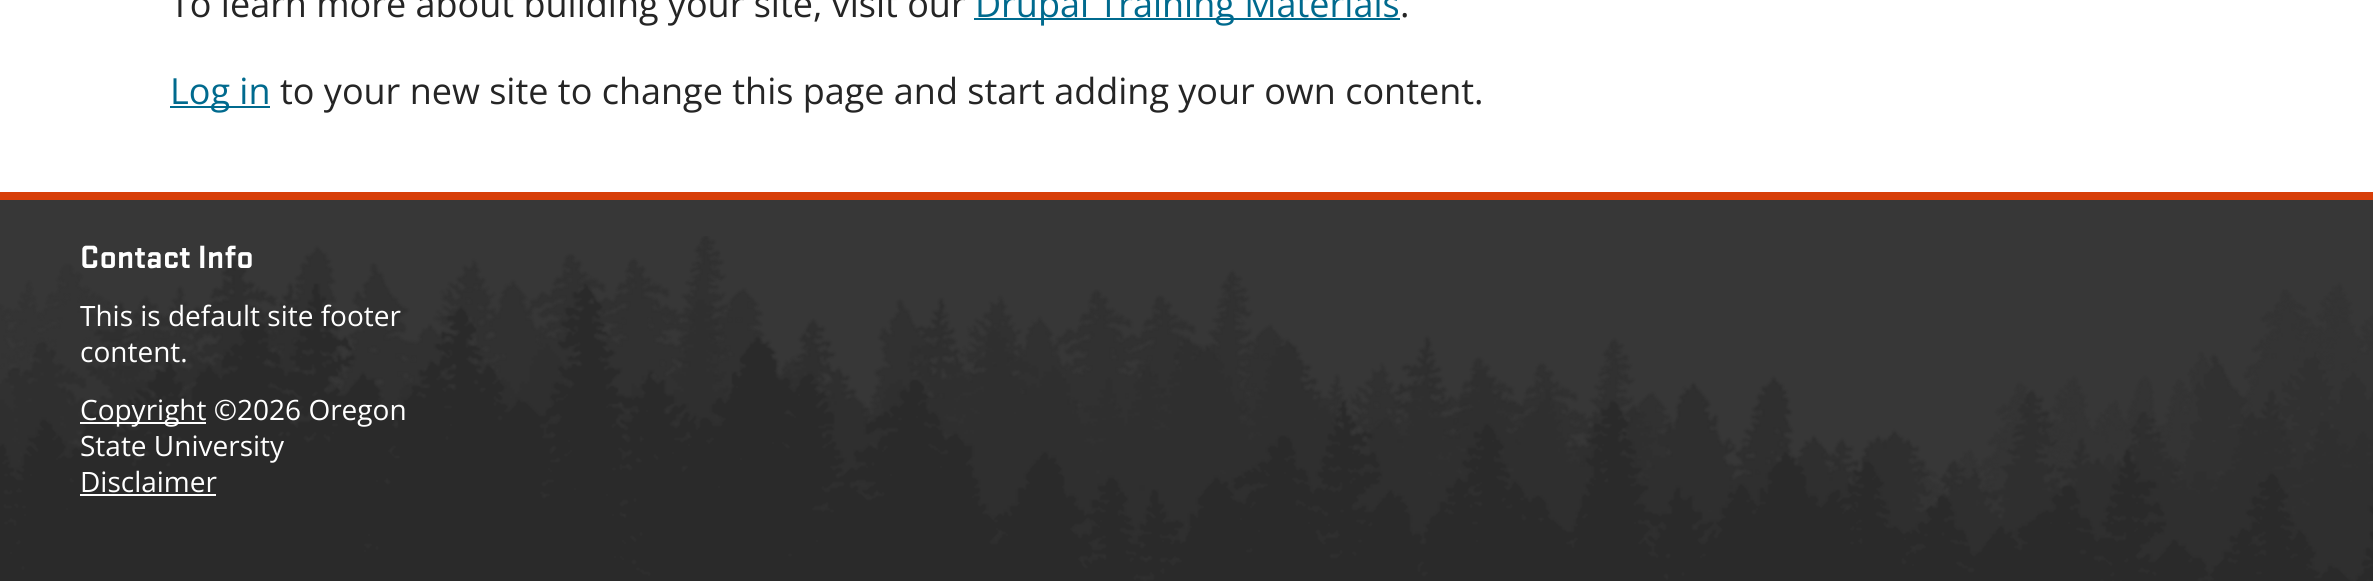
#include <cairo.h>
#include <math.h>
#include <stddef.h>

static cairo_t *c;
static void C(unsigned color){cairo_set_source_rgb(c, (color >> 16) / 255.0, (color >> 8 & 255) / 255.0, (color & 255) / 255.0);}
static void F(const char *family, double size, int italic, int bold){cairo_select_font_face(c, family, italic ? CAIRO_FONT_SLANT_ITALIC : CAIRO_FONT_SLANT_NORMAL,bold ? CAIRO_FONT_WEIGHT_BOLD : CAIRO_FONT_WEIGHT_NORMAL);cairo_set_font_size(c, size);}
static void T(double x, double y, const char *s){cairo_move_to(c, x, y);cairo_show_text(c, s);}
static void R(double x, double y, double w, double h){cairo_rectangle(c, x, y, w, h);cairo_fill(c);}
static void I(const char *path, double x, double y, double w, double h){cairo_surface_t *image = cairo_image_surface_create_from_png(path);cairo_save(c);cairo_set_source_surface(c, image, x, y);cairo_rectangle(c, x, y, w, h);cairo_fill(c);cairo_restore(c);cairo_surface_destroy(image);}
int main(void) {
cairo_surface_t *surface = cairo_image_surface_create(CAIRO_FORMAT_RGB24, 2373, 581);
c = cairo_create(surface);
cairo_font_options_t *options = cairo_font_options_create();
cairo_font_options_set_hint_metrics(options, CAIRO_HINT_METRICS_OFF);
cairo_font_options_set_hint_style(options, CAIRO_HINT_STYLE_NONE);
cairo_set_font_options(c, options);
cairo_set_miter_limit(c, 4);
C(0xffffff);
cairo_paint(c);
F("Open Sans",36,0,0);
C(0x252525);
T(170,17,"To learn more about building your site, visit our");
C(0x006a8e);
R(974,18,426,2);
T(975,17,"Drupal Training Materials");
C(0x252525);
T(1400,17,".");
C(0x006a8e);
R(170,106,100,2);
T(170,104,"Log in");
C(0x252525);
T(280,104,"to your new site to change this page and start adding your own content.");
C(0x373737);
R(0,200,2373,381);
I("1.png",0,236,2373,345);
C(0xd73f09);
R(0,192,2373,8);
F("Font",33.5,0,1);
C(0xffffff);
T(80,268,"Contact Info");
F("Open Sans",28,0,0);
T(80,326,"This is default site footer");
T(80,362,"content.");
R(80,422,126,2);
T(80,420,"Copyright ©2026 Oregon");
T(80,456,"State University");
T(80,492,"Disclaimer");
R(80,494,136,2);
cairo_surface_write_to_png(surface, "o.png");
cairo_font_options_destroy(options);
cairo_destroy(c);
cairo_surface_destroy(surface);
return 0;
}
